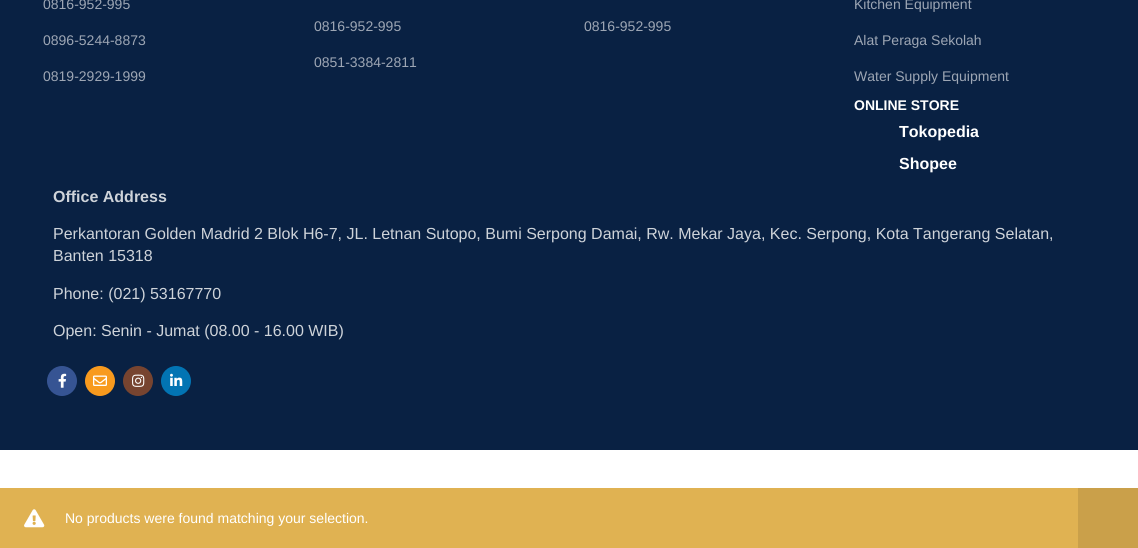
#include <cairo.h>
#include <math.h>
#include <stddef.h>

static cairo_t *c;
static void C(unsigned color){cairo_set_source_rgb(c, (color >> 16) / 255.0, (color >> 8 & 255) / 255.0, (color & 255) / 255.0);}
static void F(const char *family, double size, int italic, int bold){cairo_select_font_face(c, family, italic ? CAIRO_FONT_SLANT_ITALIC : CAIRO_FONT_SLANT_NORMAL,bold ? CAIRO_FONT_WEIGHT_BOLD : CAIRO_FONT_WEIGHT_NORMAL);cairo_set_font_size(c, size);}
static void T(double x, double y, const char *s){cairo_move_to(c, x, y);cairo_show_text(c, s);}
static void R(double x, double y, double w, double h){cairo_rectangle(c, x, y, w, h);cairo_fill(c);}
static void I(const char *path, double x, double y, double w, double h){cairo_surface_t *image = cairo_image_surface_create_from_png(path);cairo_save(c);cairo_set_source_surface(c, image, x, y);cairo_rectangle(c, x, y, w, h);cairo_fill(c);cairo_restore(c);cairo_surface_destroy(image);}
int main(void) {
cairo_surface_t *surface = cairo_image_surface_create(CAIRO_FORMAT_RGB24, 1138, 548);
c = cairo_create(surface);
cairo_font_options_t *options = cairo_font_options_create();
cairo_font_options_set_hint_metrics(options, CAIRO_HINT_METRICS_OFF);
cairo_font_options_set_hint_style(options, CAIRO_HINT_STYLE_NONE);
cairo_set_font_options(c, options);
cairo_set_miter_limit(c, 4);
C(0xffffff);
cairo_paint(c);
C(0x092143);
R(0,0,1138,450);
F("Liberation Sans",14,0,0);
C(0x9da6b4);
T(43,9,"0816-952-995");
T(43,45,"0896-5244-8873");
T(43,81,"0819-2929-1999");
T(314,31,"0816-952-995");
T(314,67,"0851-3384-2811");
T(584,31,"0816-952-995");
T(854,9,"Kitchen Equipment");
T(854,45,"Alat Peraga Sekolah");
T(854,81,"Water Supply Equipment");
F("Liberation Sans",14,0,1);
C(0xffffff);
T(854,110,"ONLINE STORE");
F("Liberation Sans",16,0,1);
T(899,137,"Tokopedia");
T(899,169,"Shopee");
C(0xced3d9);
T(53,202,"Office Address");
F("Liberation Sans",16,0,0);
T(53,239,"Perkantoran Golden Madrid 2 Blok H6-7, JL. Letnan Sutopo, Bumi Serpong Damai, Rw. Mekar Jaya, Kec. Serpong, Kota Tangerang Selatan,");
T(53,261,"Banten 15318");
T(53,299,"Phone: (021) 53167770");
T(53,336,"Open: Senin - Jumat (08.00 - 16.00 WIB)");
C(0x365493);
cairo_new_path(c);
cairo_arc(c,62,381,15,0,2 * M_PI);
cairo_fill(c);
I("1.png",58,373,9,15);
C(0xf89a1e);
cairo_arc(c,100,381,15,0,2 * M_PI);
cairo_fill(c);
I("2.png",93,375,14,11);
C(0x774430);
cairo_arc(c,138,381,15,0,2 * M_PI);
cairo_fill(c);
I("3.png",132,374,13,13);
C(0x0274b3);
cairo_arc(c,176,381,15,0,2 * M_PI);
cairo_fill(c);
I("4.png",170,373,13,13);
C(0xe0b252);
R(0,488,1078,60);
I("5.png",24,509,21,19);
F("Liberation Sans",14,0,0);
C(0xffffff);
T(65,523,"No products were found matching your selection.");
C(0xcaa04a);
R(1078,488,60,60);
cairo_surface_write_to_png(surface, "o.png");
cairo_font_options_destroy(options);
cairo_destroy(c);
cairo_surface_destroy(surface);
return 0;
}
